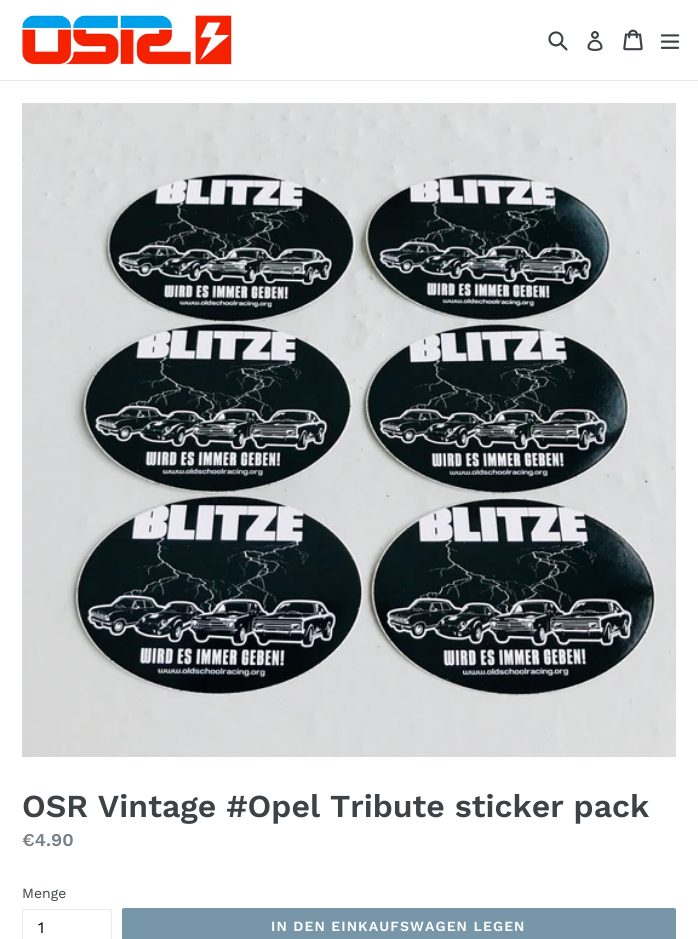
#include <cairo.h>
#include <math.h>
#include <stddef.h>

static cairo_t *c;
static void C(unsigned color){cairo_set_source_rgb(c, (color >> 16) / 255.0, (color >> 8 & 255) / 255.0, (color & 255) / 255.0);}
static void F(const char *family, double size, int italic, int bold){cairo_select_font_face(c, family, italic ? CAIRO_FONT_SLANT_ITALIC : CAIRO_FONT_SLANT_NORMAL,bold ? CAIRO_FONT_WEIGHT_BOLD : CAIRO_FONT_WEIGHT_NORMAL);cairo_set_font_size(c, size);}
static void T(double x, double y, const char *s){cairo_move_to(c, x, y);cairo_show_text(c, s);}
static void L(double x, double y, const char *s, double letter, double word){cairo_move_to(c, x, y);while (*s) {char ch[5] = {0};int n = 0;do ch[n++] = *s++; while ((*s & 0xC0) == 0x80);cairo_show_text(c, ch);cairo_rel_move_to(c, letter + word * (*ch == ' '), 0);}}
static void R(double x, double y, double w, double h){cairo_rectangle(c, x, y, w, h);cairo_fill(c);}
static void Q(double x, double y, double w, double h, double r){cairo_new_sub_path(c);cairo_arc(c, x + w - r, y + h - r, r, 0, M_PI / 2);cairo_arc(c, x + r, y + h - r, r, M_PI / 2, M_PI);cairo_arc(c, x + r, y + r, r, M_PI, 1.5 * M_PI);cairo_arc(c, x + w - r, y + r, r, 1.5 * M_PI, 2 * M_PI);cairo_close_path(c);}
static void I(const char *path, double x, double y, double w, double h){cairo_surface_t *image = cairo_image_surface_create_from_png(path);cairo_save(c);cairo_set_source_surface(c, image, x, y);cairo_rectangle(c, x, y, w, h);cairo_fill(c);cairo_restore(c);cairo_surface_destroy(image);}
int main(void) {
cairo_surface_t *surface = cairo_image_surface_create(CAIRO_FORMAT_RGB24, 698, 939);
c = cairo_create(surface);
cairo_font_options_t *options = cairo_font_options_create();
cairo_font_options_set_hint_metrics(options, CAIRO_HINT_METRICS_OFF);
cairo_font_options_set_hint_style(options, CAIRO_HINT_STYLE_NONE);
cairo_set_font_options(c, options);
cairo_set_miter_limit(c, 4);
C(0xffffff);
cairo_paint(c);
C(0xe8e9eb);
R(0,80,698,1);
I("1.png",22,15,210,50);
I("2.png",548,31,20,20);
I("3.png",587,31,16,20);
I("4.png",623,29,20,22);
I("5.png",660,34,20,15);
I("6.png",22,103,654,654);
F("Work Sans SemiBold",32,0,0);
C(0x3d4246);
T(22,817,"OSR Vintage #Opel Tribute sticker pack");
F("Work Sans SemiBold",18,0,0);
C(0x788188);
T(22,846,"€4.90");
F("Work Sans",14,0,0);
C(0x3d4246);
T(22,898,"Menge");
Q(22.5,909.5,89,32,1.5);
C(0xe8e9eb);
cairo_set_line_width(c,1);
cairo_stroke(c);
F("Work Sans",16,0,0);
C(0x000000);
T(38,933,"1");
C(0x7796a8);
Q(122,908,554,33,2);
cairo_fill(c);
F("Work Sans SemiBold",14,0,0);
C(0xffffff);
L(271,931,"IN DEN EINKAUFSWAGEN LEGEN",1.1,0);
cairo_surface_write_to_png(surface, "o.png");
cairo_font_options_destroy(options);
cairo_destroy(c);
cairo_surface_destroy(surface);
return 0;
}
